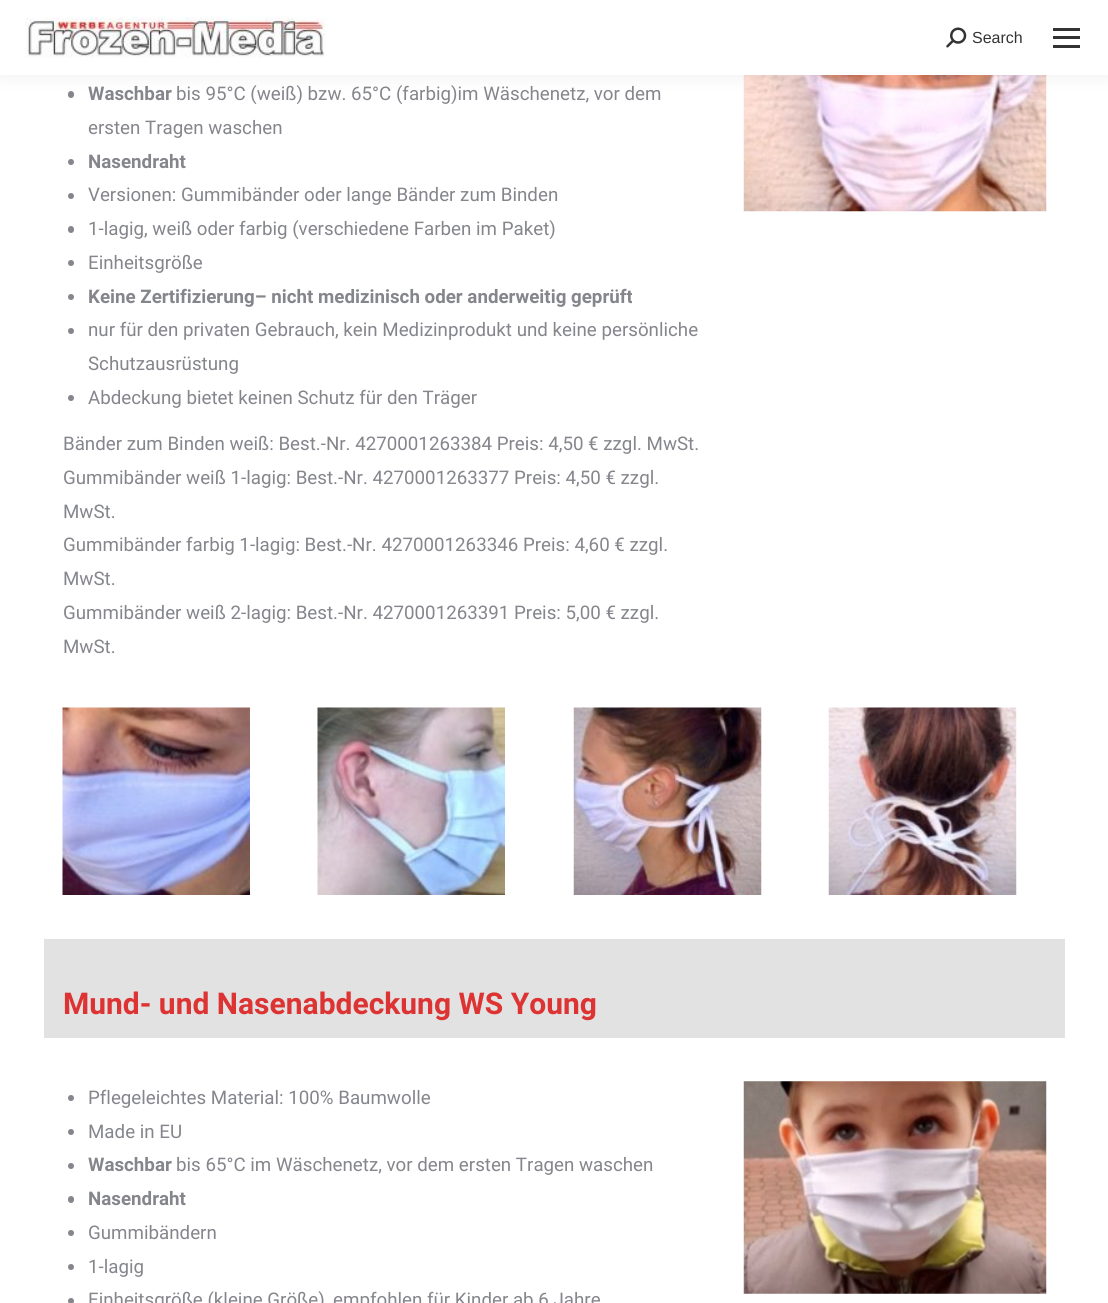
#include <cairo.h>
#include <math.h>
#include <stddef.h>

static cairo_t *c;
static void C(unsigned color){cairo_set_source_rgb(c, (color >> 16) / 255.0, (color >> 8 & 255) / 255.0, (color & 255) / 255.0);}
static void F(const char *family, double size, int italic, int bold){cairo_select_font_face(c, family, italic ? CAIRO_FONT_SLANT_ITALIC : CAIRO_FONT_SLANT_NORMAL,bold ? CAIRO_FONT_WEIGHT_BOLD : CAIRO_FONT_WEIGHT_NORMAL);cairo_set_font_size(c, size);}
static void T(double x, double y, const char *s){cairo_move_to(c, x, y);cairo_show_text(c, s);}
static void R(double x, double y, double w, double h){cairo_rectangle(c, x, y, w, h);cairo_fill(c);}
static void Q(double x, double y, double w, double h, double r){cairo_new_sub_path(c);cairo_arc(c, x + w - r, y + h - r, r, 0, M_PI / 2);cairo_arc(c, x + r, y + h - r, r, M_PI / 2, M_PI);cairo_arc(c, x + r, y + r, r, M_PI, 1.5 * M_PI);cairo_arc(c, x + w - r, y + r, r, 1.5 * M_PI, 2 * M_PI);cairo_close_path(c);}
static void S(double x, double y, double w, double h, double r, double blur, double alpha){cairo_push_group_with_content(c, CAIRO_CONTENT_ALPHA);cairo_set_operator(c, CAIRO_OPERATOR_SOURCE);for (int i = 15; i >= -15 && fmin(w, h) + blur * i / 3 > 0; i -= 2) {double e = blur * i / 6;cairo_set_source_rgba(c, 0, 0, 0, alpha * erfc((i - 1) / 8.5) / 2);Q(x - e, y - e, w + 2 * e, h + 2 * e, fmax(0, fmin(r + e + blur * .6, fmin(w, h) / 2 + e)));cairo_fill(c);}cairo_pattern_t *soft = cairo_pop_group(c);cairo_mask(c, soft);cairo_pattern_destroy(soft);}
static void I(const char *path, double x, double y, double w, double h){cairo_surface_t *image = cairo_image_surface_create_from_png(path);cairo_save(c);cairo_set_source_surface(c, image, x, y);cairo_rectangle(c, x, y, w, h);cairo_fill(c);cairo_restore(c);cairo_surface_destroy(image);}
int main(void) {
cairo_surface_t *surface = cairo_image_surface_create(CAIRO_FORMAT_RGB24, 1108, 1303);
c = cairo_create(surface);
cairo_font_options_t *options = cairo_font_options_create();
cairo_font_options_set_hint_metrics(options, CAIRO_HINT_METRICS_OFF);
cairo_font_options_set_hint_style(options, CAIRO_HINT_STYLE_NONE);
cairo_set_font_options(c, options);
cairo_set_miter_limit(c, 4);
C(0xffffff);
cairo_paint(c);
C(0x85868c);
Q(68,91,6,7,3);
cairo_fill(c);
I("3.png",743,75,304,137);
C(0x000000);
S(-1,-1,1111,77,0,9.5,.07);
C(0xffffff);
R(0,0,1108,75);
I("1.png",25,17,301,41);
I("2.png",946,27,21,21);
F("Liberation Sans",16,0,0);
C(0x333333);
T(972,43,"Search");
R(1053,28,27,3);
R(1053,36,27,3);
R(1053,45,27,3);
F("Roboto",18.75,0,1);
C(0x85868c);
T(88,100,"Waschbar");
F("Roboto",18.75,0,0);
T(176,100,"bis 95°C (weiß) bzw. 65°C (farbig)im Wäschenetz, vor dem");
T(88,134,"ersten Tragen waschen");
cairo_new_path(c);
cairo_arc(c,71,162,3,0,2 * M_PI);
cairo_fill(c);
F("Roboto",18.75,0,1);
T(88,168,"Nasendraht");
cairo_new_path(c);
cairo_arc(c,71,196,3,0,2 * M_PI);
cairo_fill(c);
F("Roboto",18.75,0,0);
T(88,201,"Versionen: Gummibänder oder lange Bänder zum Binden");
Q(68,226,6,7,3);
cairo_fill(c);
T(88,235,"1-lagig, weiß oder farbig (verschiedene Farben im Paket)");
cairo_new_path(c);
cairo_arc(c,71,263,3,0,2 * M_PI);
cairo_fill(c);
T(88,269,"Einheitsgröße");
cairo_new_path(c);
cairo_arc(c,71,297,3,0,2 * M_PI);
cairo_fill(c);
F("Roboto",18.75,0,1);
T(88,303,"Keine Zertifizierung– nicht medizinisch oder anderweitig geprüft");
cairo_new_path(c);
cairo_arc(c,71,331,3,0,2 * M_PI);
cairo_fill(c);
F("Roboto",18.75,0,0);
T(88,336,"nur für den privaten Gebrauch, kein Medizinprodukt und keine persönliche");
T(88,370,"Schutzausrüstung");
cairo_new_path(c);
cairo_arc(c,71,398,3,0,2 * M_PI);
cairo_fill(c);
T(88,404,"Abdeckung bietet keinen Schutz für den Träger");
T(63,450,"Bänder zum Binden weiß: Best.-Nr. 4270001263384 Preis: 4,50 € zzgl. MwSt.");
T(63,484,"Gummibänder weiß 1-lagig: Best.-Nr. 4270001263377 Preis: 4,50 € zzgl.");
T(63,518,"MwSt.");
T(63,551,"Gummibänder farbig 1-lagig: Best.-Nr. 4270001263346 Preis: 4,60 € zzgl.");
T(63,585,"MwSt.");
T(63,619,"Gummibänder weiß 2-lagig: Best.-Nr. 4270001263391 Preis: 5,00 € zzgl.");
T(63,653,"MwSt.");
I("4.png",62,707,188,188);
I("5.png",317,707,188,188);
I("6.png",573,707,189,188);
I("7.png",828,707,189,188);
C(0xe2e2e2);
R(44,939,1021,99);
F("Roboto",30,0,1);
C(0xdd3333);
T(63,1014,"Mund- und Nasenabdeckung WS Young");
C(0x85868c);
cairo_new_path(c);
cairo_arc(c,71,1098,3,0,2 * M_PI);
cairo_fill(c);
F("Roboto",18.75,0,0);
T(88,1104,"Pflegeleichtes Material: 100% Baumwolle");
cairo_new_path(c);
cairo_arc(c,71,1132,3,0,2 * M_PI);
cairo_fill(c);
T(88,1138,"Made in EU");
cairo_new_path(c);
cairo_arc(c,71,1166,3,0,2 * M_PI);
cairo_fill(c);
F("Roboto",18.75,0,1);
T(88,1171,"Waschbar");
F("Roboto",18.75,0,0);
T(176,1171,"bis 65°C im Wäschenetz, vor dem ersten Tragen waschen");
Q(68,1196,6,7,3);
cairo_fill(c);
F("Roboto",18.75,0,1);
T(88,1205,"Nasendraht");
cairo_new_path(c);
cairo_arc(c,71,1233,3,0,2 * M_PI);
cairo_fill(c);
F("Roboto",18.75,0,0);
T(88,1239,"Gummibändern");
cairo_new_path(c);
cairo_arc(c,71,1267,3,0,2 * M_PI);
cairo_fill(c);
T(88,1273,"1-lagig");
cairo_new_path(c);
cairo_arc(c,71,1301,3,0,2 * M_PI);
cairo_fill(c);
T(88,1306,"Einheitsgröße (kleine Größe), empfohlen für Kinder ab 6 Jahre");
I("8.png",743,1081,304,213);
cairo_surface_write_to_png(surface, "o.png");
cairo_font_options_destroy(options);
cairo_destroy(c);
cairo_surface_destroy(surface);
return 0;
}
